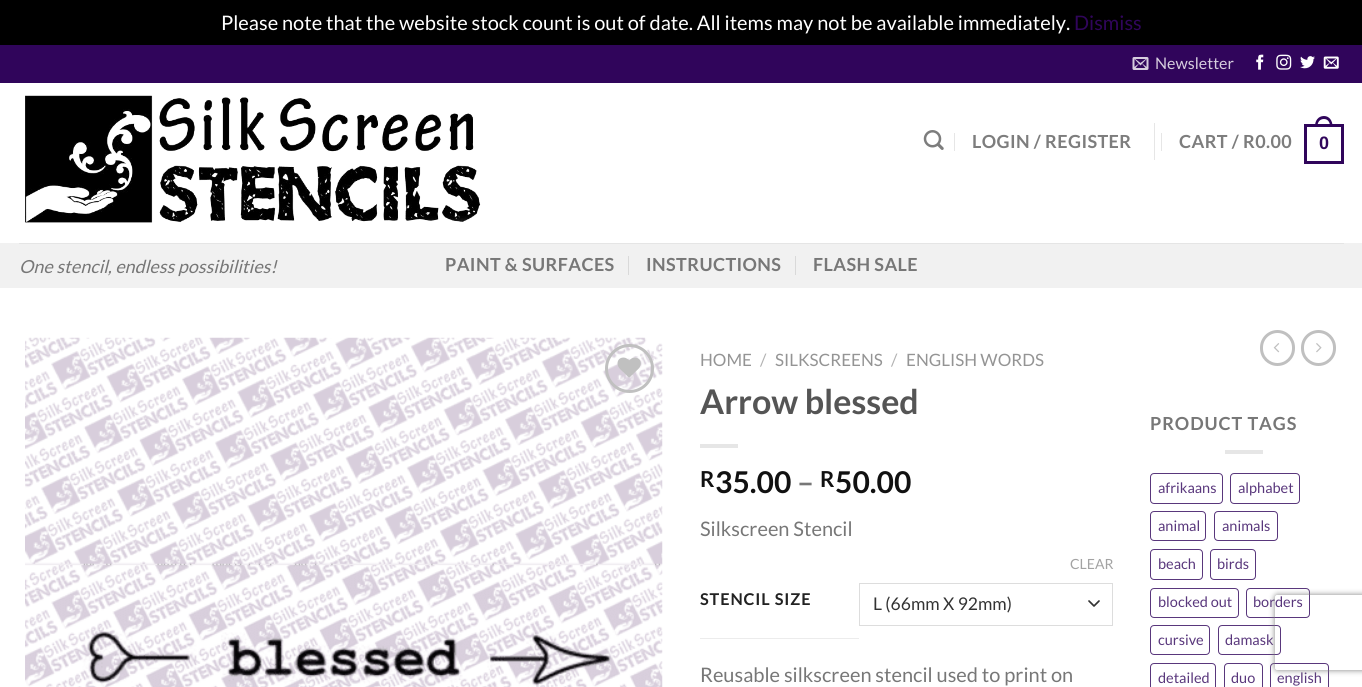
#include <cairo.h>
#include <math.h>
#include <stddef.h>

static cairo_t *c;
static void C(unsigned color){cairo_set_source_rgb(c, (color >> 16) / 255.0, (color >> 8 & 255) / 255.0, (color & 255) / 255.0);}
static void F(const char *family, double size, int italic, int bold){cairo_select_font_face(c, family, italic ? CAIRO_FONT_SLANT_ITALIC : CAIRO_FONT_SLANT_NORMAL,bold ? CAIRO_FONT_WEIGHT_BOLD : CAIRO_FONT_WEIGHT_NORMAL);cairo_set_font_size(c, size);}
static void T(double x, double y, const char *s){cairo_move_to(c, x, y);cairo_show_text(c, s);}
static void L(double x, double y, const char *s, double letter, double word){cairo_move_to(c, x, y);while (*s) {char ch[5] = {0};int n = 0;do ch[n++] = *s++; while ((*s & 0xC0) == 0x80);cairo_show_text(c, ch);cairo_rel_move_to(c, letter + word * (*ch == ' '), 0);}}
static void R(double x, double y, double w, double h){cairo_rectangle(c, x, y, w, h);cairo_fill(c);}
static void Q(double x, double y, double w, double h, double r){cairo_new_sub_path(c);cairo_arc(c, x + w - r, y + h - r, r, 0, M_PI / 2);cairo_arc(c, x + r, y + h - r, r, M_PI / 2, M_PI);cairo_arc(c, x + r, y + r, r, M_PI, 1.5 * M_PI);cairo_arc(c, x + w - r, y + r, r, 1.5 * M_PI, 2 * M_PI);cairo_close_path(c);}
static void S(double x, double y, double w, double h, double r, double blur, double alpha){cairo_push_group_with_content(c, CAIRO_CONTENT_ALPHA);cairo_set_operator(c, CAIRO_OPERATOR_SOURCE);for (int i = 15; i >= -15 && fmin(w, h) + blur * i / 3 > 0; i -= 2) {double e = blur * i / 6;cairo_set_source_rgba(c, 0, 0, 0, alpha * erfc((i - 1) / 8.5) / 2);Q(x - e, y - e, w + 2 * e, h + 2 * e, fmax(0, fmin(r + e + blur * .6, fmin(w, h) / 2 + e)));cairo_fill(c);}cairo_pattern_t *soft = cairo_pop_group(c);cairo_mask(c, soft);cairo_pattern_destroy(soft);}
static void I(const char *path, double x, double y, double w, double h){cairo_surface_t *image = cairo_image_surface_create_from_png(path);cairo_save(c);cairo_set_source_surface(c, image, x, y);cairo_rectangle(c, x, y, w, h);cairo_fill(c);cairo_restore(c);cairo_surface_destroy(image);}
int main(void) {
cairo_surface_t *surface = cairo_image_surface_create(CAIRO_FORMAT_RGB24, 1362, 687);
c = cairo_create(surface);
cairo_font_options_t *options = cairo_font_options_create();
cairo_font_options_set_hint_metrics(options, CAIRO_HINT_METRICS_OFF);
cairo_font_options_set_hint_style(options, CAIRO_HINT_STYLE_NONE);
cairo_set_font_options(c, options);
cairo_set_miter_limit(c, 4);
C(0x000000);
cairo_paint(c);
F("Lato",20,0,0);
C(0xffffff);
T(221,30,"Please note that the website stock count is out of date. All items may not be available immediately.");
C(0x30055b);
T(1074,30,"Dismiss");
C(0xffffff);
R(0,83,1362,604);
C(0x30055b);
R(0,45,1362,38);
I("1.png",1132,57,17,13);
F("Lato",16,0,0);
C(0xd6cdde);
T(1155,69,"Newsletter");
I("2.png",1256,54,8,16);
I("3.png",1276,54,16,16);
I("4.png",1300,56,15,13);
I("5.png",1323,56,16,13);
I("6.png",923,130,21,20);
C(0xe6e6e6);
R(954,133,1,18);
F("Lato",18,0,1);
C(0x7d7d7d);
L(972,148,"LOGIN / REGISTER",.4,0);
C(0xe6e6e6);
R(1154,123,1,37);
R(1161,133,1,18);
C(0x7d7d7d);
L(1179,148,"CART / R0.00",.4,0);
cairo_rectangle(c,1305.5,125.5,37,37);
C(0x30055b);
cairo_set_line_width(c,3);
cairo_stroke(c);
cairo_set_fill_rule(c,CAIRO_FILL_RULE_EVEN_ODD);
cairo_new_path(c);
cairo_move_to(c,1324,116);
cairo_curve_to(c,1329.5,116,1332.5,121,1332.5,126);
cairo_line_to(c,1315,126);
cairo_curve_to(c,1315,121,1318,116,1324,116);
cairo_close_path(c);
cairo_move_to(c,1324,119);
cairo_curve_to(c,1328,119,1330,122.5,1330,126);
cairo_line_to(c,1317.5,126);
cairo_curve_to(c,1317.5,122.5,1319.5,119,1324,119);
cairo_close_path(c);
cairo_fill(c);
F("Liberation Sans",18,0,1);
L(1319,149,"0",.4,0);
I("7.png",25,95,456,128);
C(0xf1f1f1);
R(0,243,1362,45);
F("Lato",18,1,0);
C(0x777777);
T(19,273,"One stencil, endless possibilities!");
C(0xe5e5e5);
R(19,243,1325,1);
F("Lato",18,0,1);
C(0x777777);
L(445,271,"PAINT & SURFACES",.4,0);
C(0xd9d9d9);
R(628,256,1,19);
C(0x777777);
L(646,271,"INSTRUCTIONS",.4,0);
C(0xd9d9d9);
R(795,256,1,19);
C(0x777777);
L(813,271,"FLASH SALE",.4,0);
I("8.png",25,337,638,350);
cairo_arc(c,629.5,368.5,23,0,2 * M_PI);
C(0xc0c0c0);
cairo_stroke(c);
I("9.png",617,357,24,21);
F("Lato",17,0,0);
C(0x949494);
T(700,366,"HOME");
C(0xb2b2b2);
T(760,366,"/");
C(0x949494);
T(775,366,"SILKSCREENS");
C(0xb2b2b2);
T(891,366,"/");
C(0x949494);
T(906,366,"ENGLISH WORDS");
F("Lato",34,0,1);
C(0x555555);
T(700,414,"Arrow blessed");
C(0xe6e6e6);
R(700,444,38,4);
F("Lato",22,0,1);
C(0x111111);
T(700,487,"R");
F("Lato",30,0,1);
T(715,493,"35.00");
C(0x777777);
T(797,493,"–");
F("Lato",22,0,1);
C(0x111111);
T(820,487,"R");
F("Lato",30,0,1);
T(835,493,"50.00");
F("Lato",20,0,0);
C(0x777777);
T(700,536,"Silkscreen Stencil");
C(0xececec);
R(700,638,159,1);
F("Lato",16.25,0,1);
C(0x222222);
L(700,605,"STENCIL SIZE",.9,0);
F("Lato",14,0,0);
C(0xa3a3a3);
T(1070,569,"CLEAR");
cairo_new_path(c);
cairo_move_to(c,1089,601);
cairo_line_to(c,1094,606);
cairo_line_to(c,1099,601);
C(0x333333);
cairo_set_line_width(c,1.7);
cairo_set_line_cap(c,CAIRO_LINE_CAP_ROUND);
cairo_set_line_join(c,CAIRO_LINE_JOIN_ROUND);
cairo_stroke(c);
cairo_rectangle(c,859.5,583.5,253,42);
C(0xdddddd);
cairo_set_line_width(c,1);
cairo_set_line_cap(c,CAIRO_LINE_CAP_BUTT);
cairo_set_line_join(c,CAIRO_LINE_JOIN_MITER);
cairo_stroke(c);
F("Lato",17.5,0,0);
C(0x333333);
T(873,610,"L (66mm X 92mm)");
F("Lato",20,0,0);
C(0x777777);
T(700,682,"Reusable silkscreen stencil used to print on");
Q(1261.5,331.5,32,33,16);
C(0xc0c0c0);
cairo_set_line_width(c,3);
cairo_stroke(c);
I("10.png",1273,343,7,10);
Q(1302.5,331.5,32,33,16);
cairo_stroke(c);
I("11.png",1316,343,6,10);
F("Lato",18,0,1);
C(0x777777);
L(1150,430,"PRODUCT TAGS",.9,0);
C(0xe6e6e6);
R(1225,450,38,4);
Q(1150.5,473.5,72,30,3.5);
C(0x59377c);
cairo_set_line_width(c,1);
cairo_stroke(c);
F("Lato",14.5,0,0);
T(1158,493,"afrikaans");
Q(1230.5,473.5,69,30,3.5);
cairo_stroke(c);
T(1238,493,"alphabet");
Q(1150.5,511.5,55,29,3.5);
cairo_stroke(c);
T(1158,531,"animal");
Q(1214.5,511.5,63,29,3.5);
cairo_stroke(c);
T(1222,531,"animals");
Q(1150.5,549.5,52,30,3.5);
cairo_stroke(c);
T(1158,569,"beach");
Q(1210.5,549.5,45,30,3.5);
cairo_stroke(c);
T(1217,569,"birds");
Q(1150.5,588.5,88,29,3.5);
cairo_stroke(c);
T(1158,607,"blocked out");
Q(1246.5,588.5,63,29,3.5);
cairo_stroke(c);
T(1253,607,"borders");
Q(1150.5,625.5,59,29,3.5);
cairo_stroke(c);
T(1158,645,"cursive");
Q(1218.5,625.5,62,29,3.5);
cairo_stroke(c);
T(1225,645,"damask");
Q(1150.5,663.5,65,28,3.5);
cairo_stroke(c);
T(1158,683,"detailed");
Q(1224.5,663.5,38,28,3.5);
cairo_stroke(c);
T(1231,683,"duo");
Q(1270.5,663.5,58,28,3.5);
cairo_stroke(c);
T(1277,683,"english");
cairo_save(c);
cairo_new_path(c);
cairo_move_to(c,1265,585);
cairo_line_to(c,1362,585);
cairo_line_to(c,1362,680);
cairo_line_to(c,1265,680);
cairo_close_path(c);
cairo_move_to(c,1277.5,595);
cairo_line_to(c,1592.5,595);
cairo_curve_to(c,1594,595,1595,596,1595,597.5);
cairo_line_to(c,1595,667.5);
cairo_curve_to(c,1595,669,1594,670,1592.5,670);
cairo_line_to(c,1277.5,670);
cairo_curve_to(c,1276,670,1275,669,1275,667.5);
cairo_line_to(c,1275,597.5);
cairo_curve_to(c,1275,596,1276,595,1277.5,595);
cairo_close_path(c);
cairo_clip(c);
C(0x808080);
S(1275,595,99,75,2.5,3,1);
cairo_restore(c);
cairo_surface_write_to_png(surface, "o.png");
cairo_font_options_destroy(options);
cairo_destroy(c);
cairo_surface_destroy(surface);
return 0;
}
